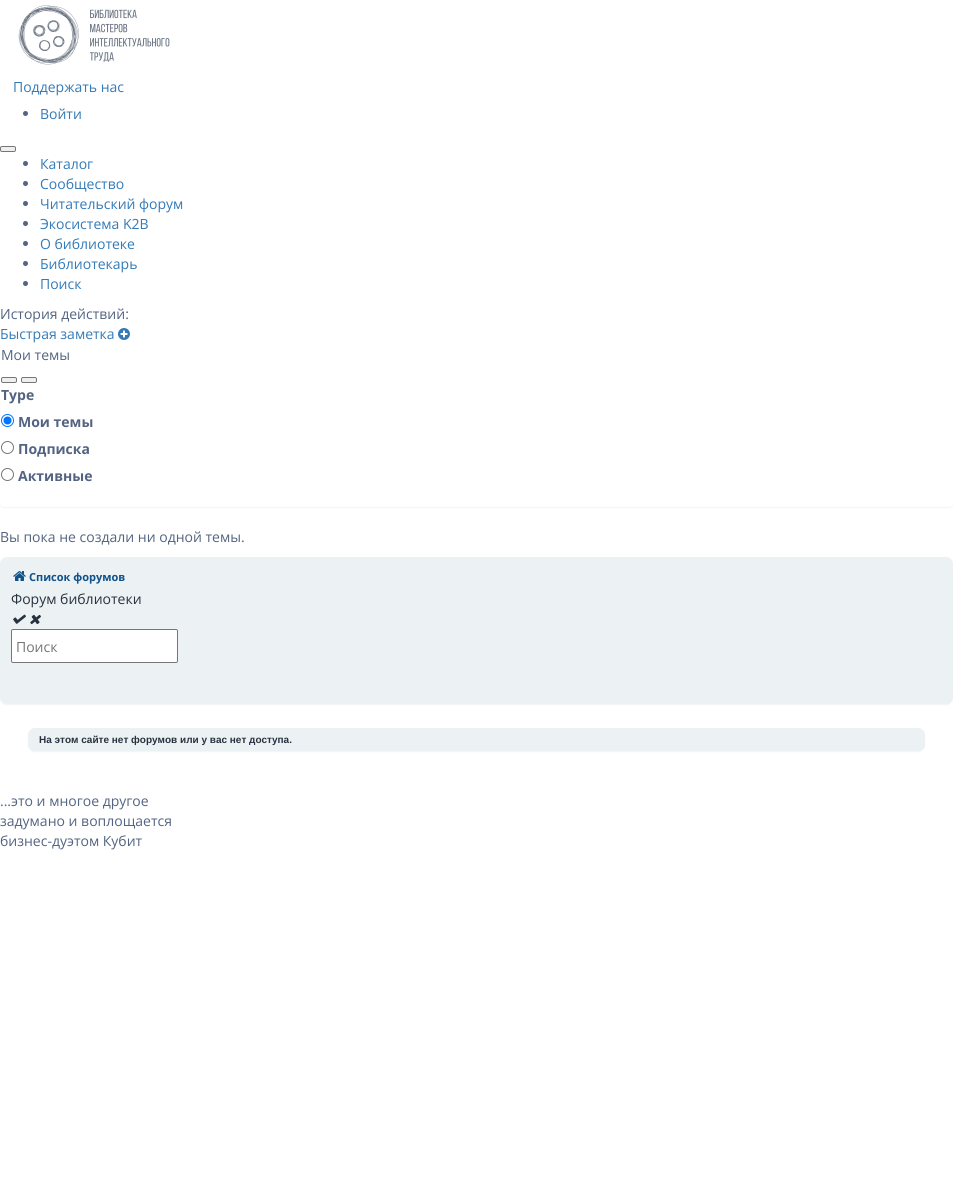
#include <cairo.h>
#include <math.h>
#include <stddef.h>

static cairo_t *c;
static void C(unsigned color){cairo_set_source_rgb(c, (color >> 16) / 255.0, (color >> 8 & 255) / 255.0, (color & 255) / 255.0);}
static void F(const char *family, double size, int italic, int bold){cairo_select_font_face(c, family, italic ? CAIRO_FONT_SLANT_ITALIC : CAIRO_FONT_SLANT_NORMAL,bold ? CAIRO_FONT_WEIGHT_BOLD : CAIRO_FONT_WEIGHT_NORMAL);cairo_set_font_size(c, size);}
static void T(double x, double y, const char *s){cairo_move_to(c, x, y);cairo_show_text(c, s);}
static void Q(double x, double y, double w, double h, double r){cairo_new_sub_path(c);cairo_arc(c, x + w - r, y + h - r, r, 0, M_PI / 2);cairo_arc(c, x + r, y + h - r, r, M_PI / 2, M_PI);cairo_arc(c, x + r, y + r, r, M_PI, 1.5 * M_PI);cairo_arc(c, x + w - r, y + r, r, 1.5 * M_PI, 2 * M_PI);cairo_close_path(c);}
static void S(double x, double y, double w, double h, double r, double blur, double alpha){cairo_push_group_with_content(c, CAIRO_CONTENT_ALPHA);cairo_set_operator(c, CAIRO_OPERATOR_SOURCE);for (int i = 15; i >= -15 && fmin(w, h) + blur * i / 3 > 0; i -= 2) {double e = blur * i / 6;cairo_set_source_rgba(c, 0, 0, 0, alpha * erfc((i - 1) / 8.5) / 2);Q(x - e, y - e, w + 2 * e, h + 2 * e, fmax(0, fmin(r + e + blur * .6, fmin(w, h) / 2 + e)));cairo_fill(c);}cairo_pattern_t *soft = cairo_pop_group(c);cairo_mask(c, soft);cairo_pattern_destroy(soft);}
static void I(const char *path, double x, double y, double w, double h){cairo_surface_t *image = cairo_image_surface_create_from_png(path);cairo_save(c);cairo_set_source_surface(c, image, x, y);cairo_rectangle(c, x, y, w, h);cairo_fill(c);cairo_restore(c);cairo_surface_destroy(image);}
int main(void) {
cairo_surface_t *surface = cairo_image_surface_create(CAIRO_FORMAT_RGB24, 953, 1181);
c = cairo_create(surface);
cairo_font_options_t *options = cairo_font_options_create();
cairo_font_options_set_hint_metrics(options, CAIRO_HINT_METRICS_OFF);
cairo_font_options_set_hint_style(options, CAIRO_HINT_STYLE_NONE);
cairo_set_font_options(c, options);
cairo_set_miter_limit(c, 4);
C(0xffffff);
cairo_paint(c);
I("1.png",18,5,152,60);
F("Open Sans",14,0,0);
C(0x337ab7);
T(13,92,"Поддержать нас");
C(0x536482);
cairo_new_path(c);
cairo_arc(c,25.5,113.5,2.5,0,2 * M_PI);
cairo_fill(c);
C(0x337ab7);
T(40,119,"Войти");
C(0xefefef);
Q(.5,146.5,15,5,1.5);
cairo_fill_preserve(c);
C(0x767676);
cairo_set_line_width(c,1);
cairo_stroke(c);
C(0x536482);
cairo_arc(c,25.5,163.5,2.5,0,2 * M_PI);
cairo_fill(c);
C(0x337ab7);
T(40,169,"Каталог");
C(0x536482);
cairo_new_path(c);
cairo_arc(c,25.5,183.5,2.5,0,2 * M_PI);
cairo_fill(c);
C(0x337ab7);
T(40,189,"Сообщество");
C(0x536482);
cairo_new_path(c);
cairo_arc(c,25.5,203.5,2.5,0,2 * M_PI);
cairo_fill(c);
C(0x337ab7);
T(40,209,"Читательский форум");
C(0x536482);
cairo_new_path(c);
cairo_arc(c,25.5,223.5,2.5,0,2 * M_PI);
cairo_fill(c);
C(0x337ab7);
T(40,229,"Экосистема K2B");
C(0x536482);
cairo_new_path(c);
cairo_arc(c,25.5,243.5,2.5,0,2 * M_PI);
cairo_fill(c);
C(0x337ab7);
T(40,249,"О библиотеке");
C(0x536482);
cairo_new_path(c);
cairo_arc(c,25.5,263.5,2.5,0,2 * M_PI);
cairo_fill(c);
C(0x337ab7);
T(40,269,"Библиотекарь");
C(0x536482);
cairo_new_path(c);
cairo_arc(c,25.5,283.5,2.5,0,2 * M_PI);
cairo_fill(c);
C(0x337ab7);
T(40,289,"Поиск");
C(0x536482);
T(0,319,"История действий:");
C(0x000000);
S(0,345,953,163,4,.5,.05);
C(0x337ab7);
T(0,339,"Быстрая заметка");
I("2.png",118,328,12,12);
C(0xffffff);
Q(0,344,953,163,4);
cairo_fill(c);
C(0x536482);
T(1,360,"Мои темы");
C(0xefefef);
Q(1.5,377.5,15,5,1.5);
cairo_fill_preserve(c);
C(0x767676);
cairo_stroke(c);
C(0xefefef);
Q(21.5,377.5,15,5,1.5);
cairo_fill_preserve(c);
C(0x767676);
cairo_stroke(c);
F("Open Sans",14,0,1);
C(0x536482);
T(1,400,"Type");
cairo_new_path(c);
cairo_arc(c,7.5,420.5,6,0,2 * M_PI);
C(0x0075ff);
cairo_stroke(c);
cairo_arc(c,7.5,420.5,4,0,2 * M_PI);
cairo_fill(c);
C(0x536482);
T(18,427,"Мои темы");
cairo_new_path(c);
cairo_arc(c,7.5,447.5,6,0,2 * M_PI);
C(0x767676);
cairo_stroke(c);
C(0x536482);
T(18,454,"Подписка");
cairo_new_path(c);
cairo_arc(c,7.5,474.5,6,0,2 * M_PI);
C(0x767676);
cairo_stroke(c);
C(0x536482);
T(18,481,"Активные");
F("Open Sans",14,0,0);
T(0,542,"Вы пока не создали ни одной темы.");
C(0x000000);
S(0,558,953,147,7,.5,.05);
C(0xecf1f3);
Q(0,557,953,147,7);
cairo_fill(c);
I("3.png",13,571,13,10);
F("Open Sans",11,0,1);
C(0x105289);
T(29,581,"Список форумов");
F("Open Sans",14,0,0);
C(0x28313f);
T(11,604,"Форум библиотеки");
I("4.png",13,614,13,10);
I("5.png",30,614,11,11);
C(0xffffff);
Q(11.5,629.5,166,33,1.5);
cairo_fill_preserve(c);
C(0x767676);
cairo_stroke(c);
C(0x757575);
T(16,652,"Поиск");
C(0x000000);
S(28,729,897,23,7,.5,.05);
C(0xecf1f3);
Q(28,728,897,23,7);
cairo_fill(c);
F("Liberation Sans",10,0,1);
C(0x28313f);
T(39,743,"На этом сайте нет форумов или у вас нет доступа.");
F("Open Sans",14,0,0);
C(0x536482);
T(0,806,"...это и многое другое");
T(0,826,"задумано и воплощается");
T(0,846,"бизнес-дуэтом Кубит");
cairo_surface_write_to_png(surface, "o.png");
cairo_font_options_destroy(options);
cairo_destroy(c);
cairo_surface_destroy(surface);
return 0;
}
